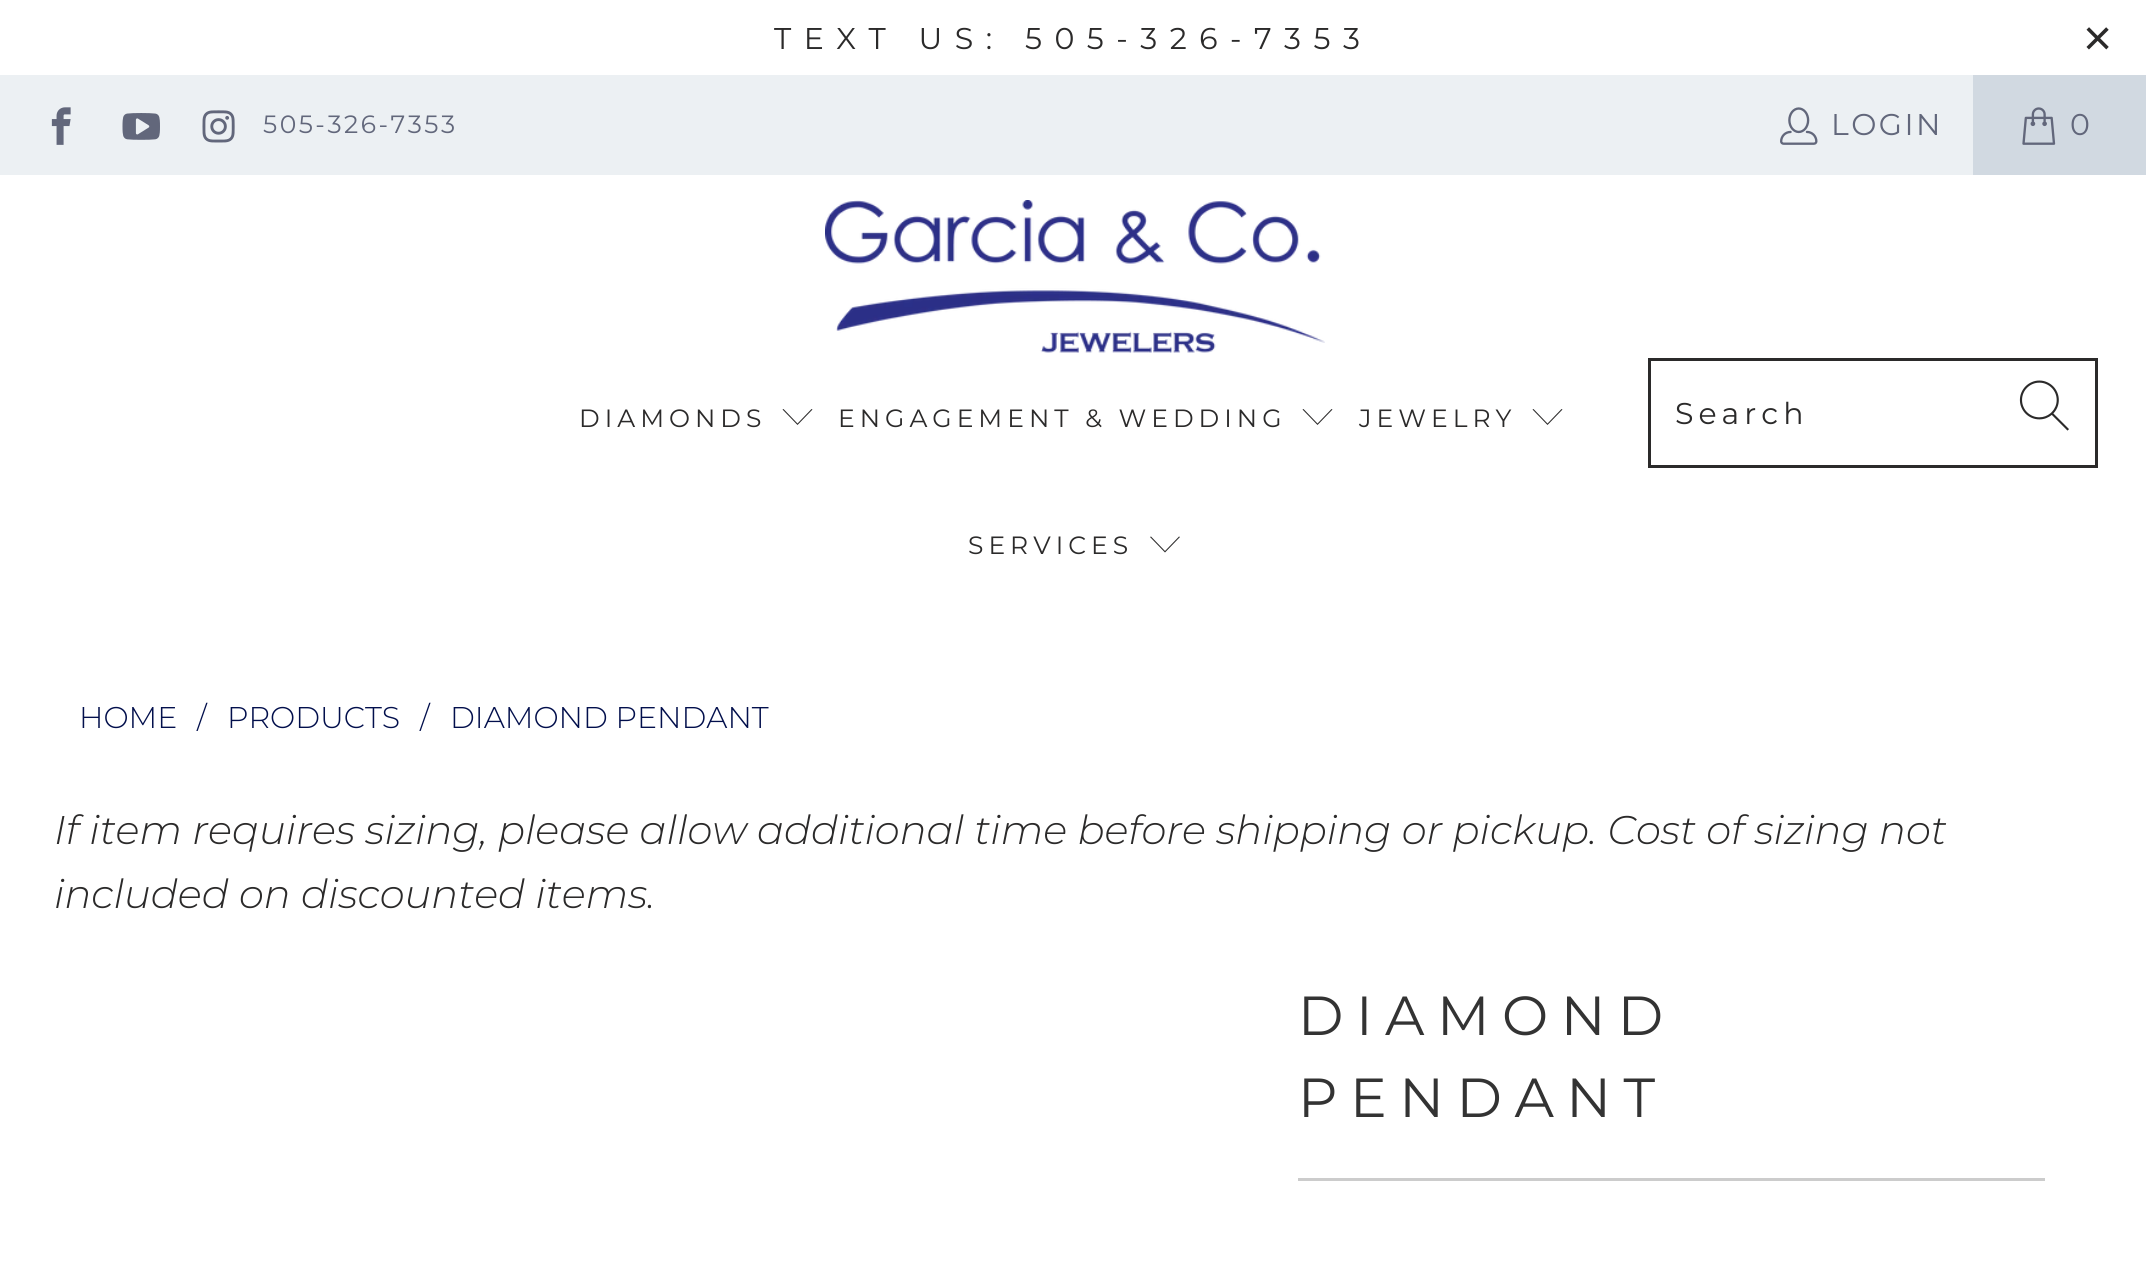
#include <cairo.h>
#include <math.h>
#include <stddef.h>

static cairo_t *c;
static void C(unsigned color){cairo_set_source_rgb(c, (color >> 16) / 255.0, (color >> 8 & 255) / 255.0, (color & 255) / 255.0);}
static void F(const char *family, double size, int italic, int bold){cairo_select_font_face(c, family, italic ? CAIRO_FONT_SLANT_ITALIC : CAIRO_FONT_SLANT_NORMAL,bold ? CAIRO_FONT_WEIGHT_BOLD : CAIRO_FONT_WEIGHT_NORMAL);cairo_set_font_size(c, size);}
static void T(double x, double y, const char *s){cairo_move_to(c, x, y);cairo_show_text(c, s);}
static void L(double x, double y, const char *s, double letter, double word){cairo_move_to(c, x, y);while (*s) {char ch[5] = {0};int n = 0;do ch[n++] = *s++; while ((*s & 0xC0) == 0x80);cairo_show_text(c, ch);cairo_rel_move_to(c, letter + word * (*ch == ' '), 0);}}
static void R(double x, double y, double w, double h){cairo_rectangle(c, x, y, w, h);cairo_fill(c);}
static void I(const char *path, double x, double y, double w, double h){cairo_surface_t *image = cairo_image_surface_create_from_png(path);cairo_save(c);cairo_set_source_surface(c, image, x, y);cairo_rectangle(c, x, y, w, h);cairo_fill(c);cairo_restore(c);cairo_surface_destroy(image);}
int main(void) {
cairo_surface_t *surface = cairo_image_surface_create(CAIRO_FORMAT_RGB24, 2146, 1263);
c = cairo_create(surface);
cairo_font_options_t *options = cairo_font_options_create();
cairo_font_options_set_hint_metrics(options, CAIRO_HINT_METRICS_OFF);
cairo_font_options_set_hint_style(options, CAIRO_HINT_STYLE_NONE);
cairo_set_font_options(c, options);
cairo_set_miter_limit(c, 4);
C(0xffffff);
cairo_paint(c);
F("Montserrat",30,0,0);
C(0x2b2a2a);
L(774,49,"TEXT US: 505-326-7353",12.5,0);
F("Liberation Sans",50,0,0);
L(2083,55,"×",12.5,0);
C(0xecf0f3);
R(0,75,1973,100);
I("1.png",51,107,20,38);
I("2.png",122,113,38,27);
I("3.png",202,110,33,33);
F("Montserrat",25,0,0);
C(0x62677b);
L(263,133,"505-326-7353",2.5,0);
I("4.png",1780,107,38,38);
F("Montserrat",30,0,0);
L(1831,135,"LOGIN",2.5,0);
C(0xd1d9e1);
R(1973,75,173,100);
I("5.png",2022,107,34,38);
C(0x62677b);
L(2070,135,"0",2.5,0);
I("6.png",825,200,500,153);
F("Montserrat",25,0,0);
C(0x2b2a2a);
L(579,427,"DIAMONDS",5,0);
cairo_new_path(c);
cairo_move_to(c,797.5,425);
cairo_line_to(c,782.5,409.5);
cairo_line_to(c,783.5,409);
cairo_line_to(c,797.5,423.5);
cairo_line_to(c,811.5,409);
cairo_line_to(c,812.5,409.5);
cairo_close_path(c);
cairo_fill(c);
L(838,427,"ENGAGEMENT & WEDDING",5,0);
cairo_new_path(c);
cairo_move_to(c,1317.5,425);
cairo_line_to(c,1302.5,409.5);
cairo_line_to(c,1303.5,409);
cairo_line_to(c,1317.5,423.5);
cairo_line_to(c,1331.5,409);
cairo_line_to(c,1332.5,409.5);
cairo_close_path(c);
cairo_fill(c);
L(1359,427,"JEWELRY",5,0);
cairo_new_path(c);
cairo_move_to(c,1547.5,425);
cairo_line_to(c,1532.5,409.5);
cairo_line_to(c,1533.5,409);
cairo_line_to(c,1547.5,423.5);
cairo_line_to(c,1561.5,409);
cairo_line_to(c,1562.5,409.5);
cairo_close_path(c);
cairo_fill(c);
L(968,554,"SERVICES",5,0);
cairo_new_path(c);
cairo_move_to(c,1165,552.5);
cairo_line_to(c,1150,537);
cairo_line_to(c,1151,536.5);
cairo_line_to(c,1165,551);
cairo_line_to(c,1179,536.5);
cairo_line_to(c,1180,537);
cairo_close_path(c);
cairo_fill(c);
cairo_rectangle(c,1649.5,359.5,447,107);
cairo_set_line_width(c,3);
cairo_stroke(c);
F("Montserrat",30,0,0);
L(1675,424,"Search",5,0);
I("7.png",2019,380,50,51);
F("Montserrat Light",30,0,0);
C(0x020f4c);
T(79,728,"HOME");
T(197,728,"/");
T(227,728,"PRODUCTS");
T(420,728,"/");
T(450,728,"DIAMOND PENDANT");
F("Montserrat Light",40,1,0);
C(0x2b2a2a);
T(54,844,"If item requires sizing, please allow additional time before shipping or pickup. Cost of sizing not");
T(54,908,"included on discounted items.");
F("Montserrat",55,0,0);
C(0x333333);
L(1298,1035,"DIAMOND",12.5,0);
L(1298,1117,"PENDANT",12.5,0);
C(0xcccccc);
R(1298,1178,747,3);
cairo_surface_write_to_png(surface, "o.png");
cairo_font_options_destroy(options);
cairo_destroy(c);
cairo_surface_destroy(surface);
return 0;
}
